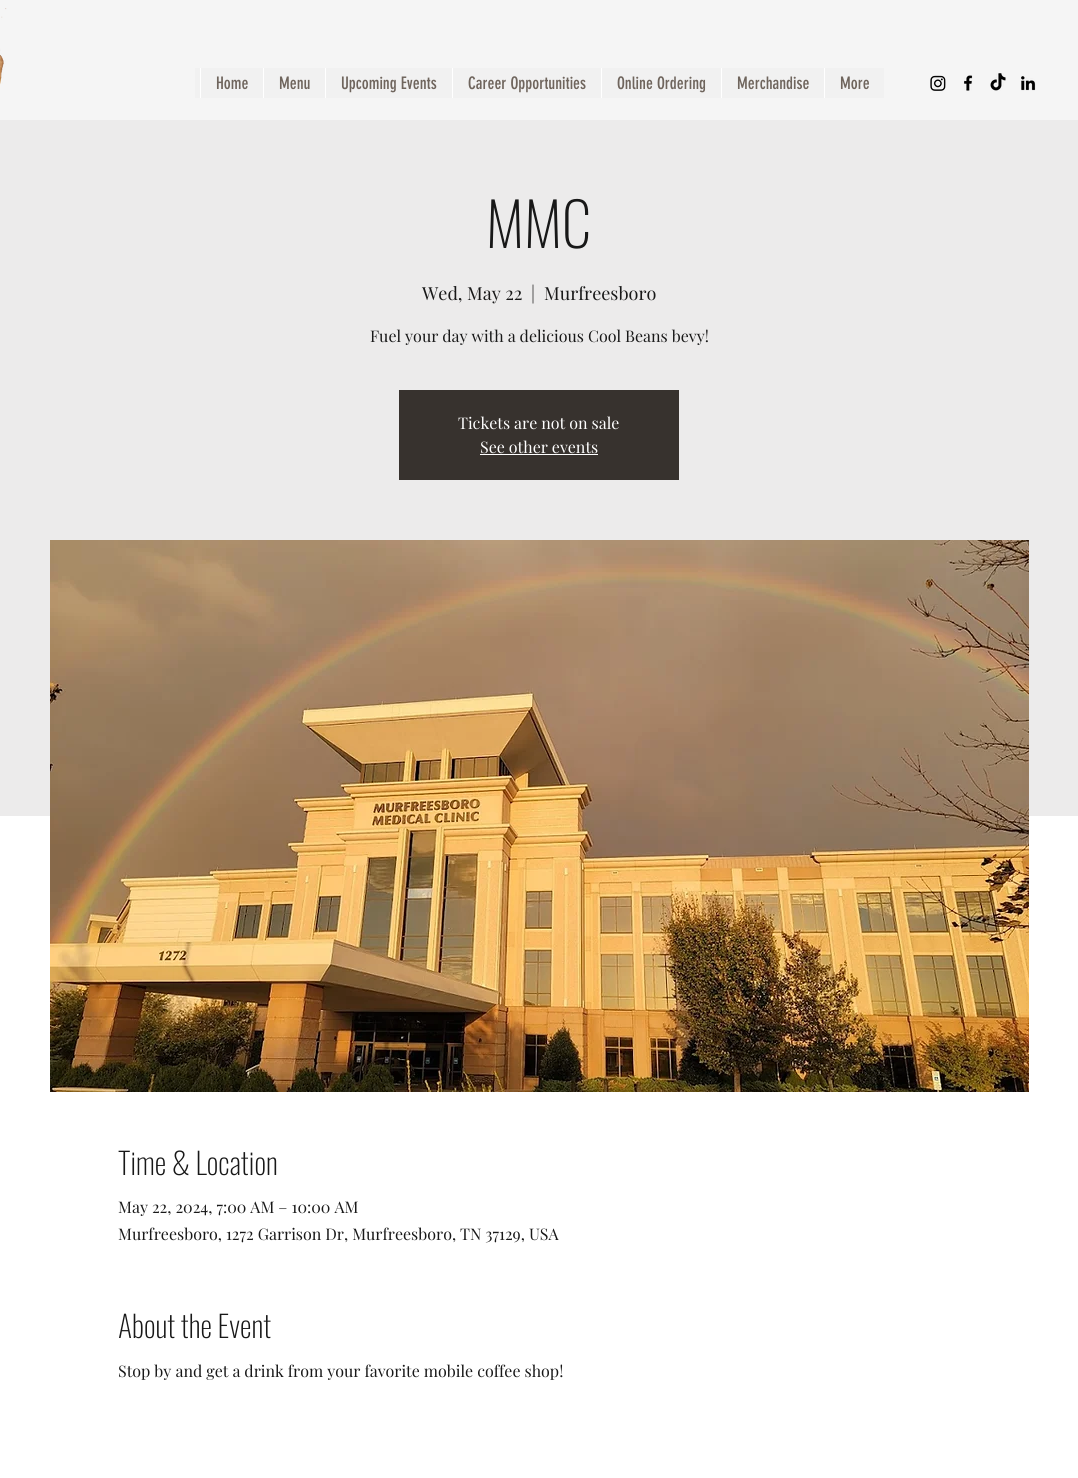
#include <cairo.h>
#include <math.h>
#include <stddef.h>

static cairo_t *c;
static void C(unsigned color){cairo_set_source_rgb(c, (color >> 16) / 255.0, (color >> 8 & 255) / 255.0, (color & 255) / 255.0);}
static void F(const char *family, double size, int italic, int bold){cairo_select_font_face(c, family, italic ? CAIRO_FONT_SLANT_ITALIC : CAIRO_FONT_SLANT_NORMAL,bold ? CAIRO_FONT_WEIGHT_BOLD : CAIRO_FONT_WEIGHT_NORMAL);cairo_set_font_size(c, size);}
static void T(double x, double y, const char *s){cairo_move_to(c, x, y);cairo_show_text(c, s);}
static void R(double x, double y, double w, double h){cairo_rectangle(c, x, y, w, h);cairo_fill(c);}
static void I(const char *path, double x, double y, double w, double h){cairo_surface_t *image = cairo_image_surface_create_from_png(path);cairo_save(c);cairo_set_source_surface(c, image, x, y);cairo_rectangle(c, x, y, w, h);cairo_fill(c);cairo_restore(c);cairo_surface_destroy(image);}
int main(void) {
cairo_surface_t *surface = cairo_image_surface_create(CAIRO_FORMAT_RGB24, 1078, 1478);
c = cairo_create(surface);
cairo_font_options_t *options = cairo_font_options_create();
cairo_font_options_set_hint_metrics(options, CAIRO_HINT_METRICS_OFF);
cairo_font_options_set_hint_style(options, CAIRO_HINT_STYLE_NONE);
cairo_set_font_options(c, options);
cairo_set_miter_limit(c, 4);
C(0xffffff);
cairo_paint(c);
C(0xf5f5f5);
R(0,0,1078,120);
I("1.png",0,8,7,77);
C(0xf1f1f1);
R(195,68,689,30);
C(0xffffff);
R(200,68,1,30);
F("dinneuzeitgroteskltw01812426",17,0,0);
C(0x6f655d);
T(216,89,"Home");
C(0xffffff);
R(263,68,1,30);
C(0x6f655d);
T(279,89,"Menu");
C(0xffffff);
R(325,68,1,30);
C(0x6f655d);
T(341,89,"Upcoming Events");
C(0xffffff);
R(452,68,1,30);
C(0x6f655d);
T(468,89,"Career Opportunities");
C(0xffffff);
R(601,68,1,30);
C(0x6f655d);
T(617,89,"Online Ordering");
C(0xffffff);
R(721,68,1,30);
C(0x6f655d);
T(737,89,"Merchandise");
C(0xffffff);
R(824,68,1,30);
C(0x6f655d);
T(840,89,"More");
I("2.png",930,75,16,16);
I("3.png",964,75,9,16);
I("4.png",990,73,16,18);
I("5.png",1021,76,15,15);
C(0xecebeb);
R(0,120,1078,696);
F("Oswald ExtraLight",60,0,0);
C(0x181818);
T(486,248,"MMC");
F("Playfair Display",18,0,0);
T(422,300,"Wed, May 22");
T(531,300,"|");
T(544,300,"Murfreesboro");
F("Playfair Display",16,0,0);
T(370,342,"Fuel your day with a delicious Cool Beans bevy!");
C(0x37322e);
R(399,390,280,90);
C(0xffffff);
T(458,429,"Tickets are not on sale");
T(480,453,"See other events");
R(480,454,118,1);
I("6.png",50,540,979,552);
F("Oswald ExtraLight",30,0,0);
C(0x181818);
T(118,1175,"Time & Location");
F("Playfair Display",16,0,0);
T(118,1213,"May 22, 2024, 7:00 AM – 10:00 AM");
T(118,1240,"Murfreesboro, 1272 Garrison Dr, Murfreesboro, TN 37129, USA");
F("Oswald ExtraLight",30,0,0);
T(118,1338,"About the Event");
F("Playfair Display",16,0,0);
T(118,1377,"Stop by and get a drink from your favorite mobile coffee shop!");
cairo_surface_write_to_png(surface, "o.png");
cairo_font_options_destroy(options);
cairo_destroy(c);
cairo_surface_destroy(surface);
return 0;
}
